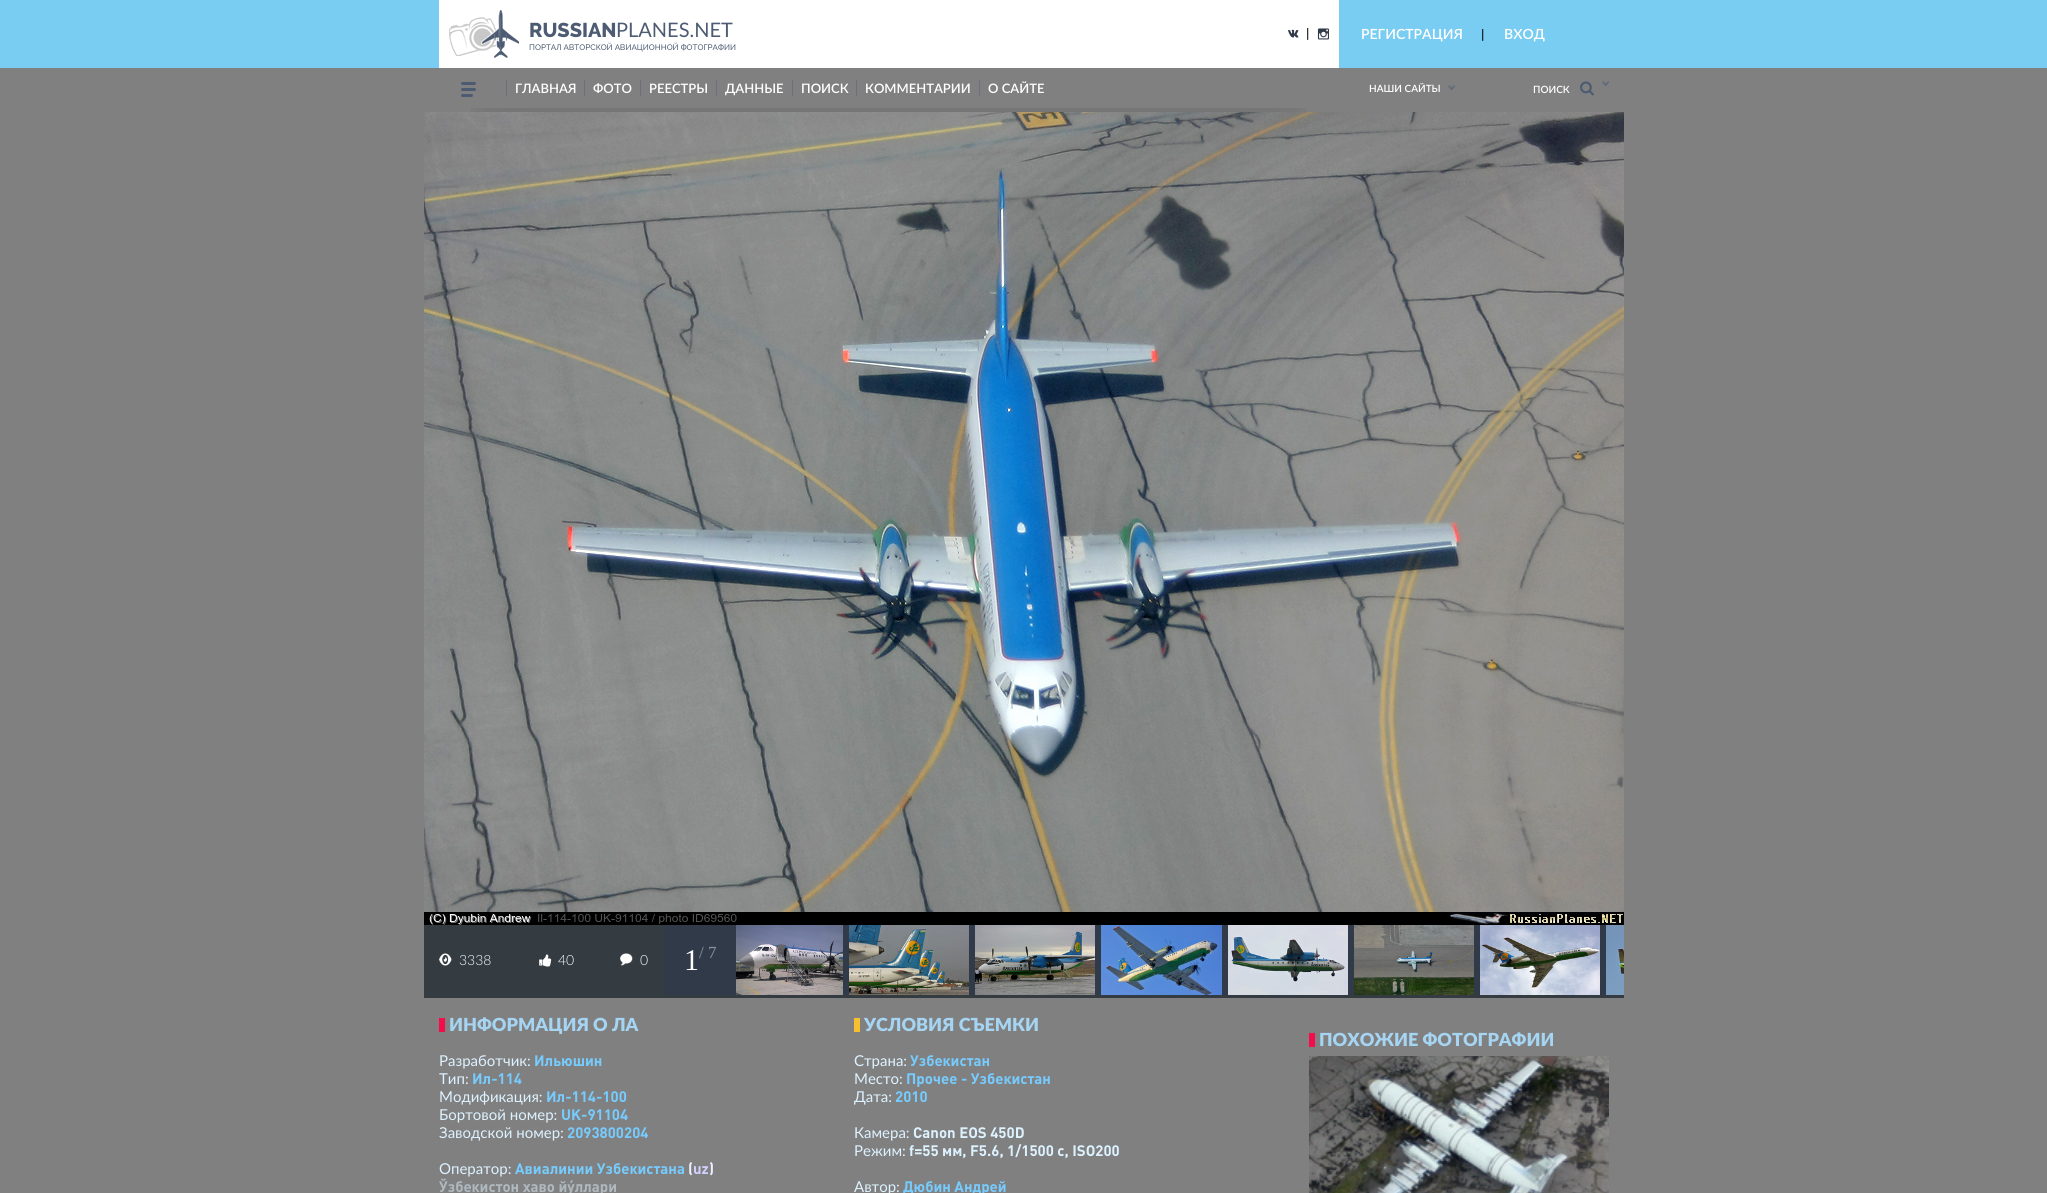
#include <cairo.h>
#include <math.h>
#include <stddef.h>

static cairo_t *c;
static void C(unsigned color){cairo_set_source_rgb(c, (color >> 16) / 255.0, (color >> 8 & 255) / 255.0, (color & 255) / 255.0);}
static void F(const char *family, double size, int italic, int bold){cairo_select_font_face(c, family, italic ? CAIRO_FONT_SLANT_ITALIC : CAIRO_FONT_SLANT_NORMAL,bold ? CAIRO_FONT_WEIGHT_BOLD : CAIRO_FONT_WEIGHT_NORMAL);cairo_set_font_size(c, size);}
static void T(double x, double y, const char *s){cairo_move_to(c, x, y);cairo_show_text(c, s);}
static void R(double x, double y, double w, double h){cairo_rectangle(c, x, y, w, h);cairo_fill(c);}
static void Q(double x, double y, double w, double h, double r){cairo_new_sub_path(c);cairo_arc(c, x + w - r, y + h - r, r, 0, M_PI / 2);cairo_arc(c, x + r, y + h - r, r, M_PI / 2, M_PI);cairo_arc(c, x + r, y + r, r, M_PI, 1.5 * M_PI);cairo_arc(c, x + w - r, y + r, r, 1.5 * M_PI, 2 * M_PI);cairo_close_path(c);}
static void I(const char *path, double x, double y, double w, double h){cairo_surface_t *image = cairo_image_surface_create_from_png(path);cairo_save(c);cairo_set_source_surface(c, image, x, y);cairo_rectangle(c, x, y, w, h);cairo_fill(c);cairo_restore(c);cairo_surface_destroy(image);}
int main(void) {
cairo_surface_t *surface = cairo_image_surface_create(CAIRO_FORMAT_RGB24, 2047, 1193);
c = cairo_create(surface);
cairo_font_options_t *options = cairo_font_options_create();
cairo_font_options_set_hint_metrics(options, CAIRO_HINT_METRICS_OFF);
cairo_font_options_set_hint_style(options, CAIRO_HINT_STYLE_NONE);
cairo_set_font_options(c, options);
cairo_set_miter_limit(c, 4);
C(0x808080);
cairo_paint(c);
C(0x79ccf2);
R(0,0,2047,68);
C(0xffffff);
R(439,0,900,68);
I("1.png",449,10,70,48);
F("Raleway ExtraBold",20,0,0);
C(0x4d5c73);
T(529,37,"RUSSIAN");
F("Lato",20,0,0);
T(616,37,"PLANES.NET");
F("Raleway Medium",8,0,0);
T(529,50,"ПОРТАЛ АВТОРСКОЙ АВИАЦИОННОЙ ФОТОГРАФИИ");
I("2.png",1288,29,11,9);
F("Roboto",14,0,0);
C(0x000000);
T(1306,38,"|");
I("3.png",1317,28,12,12);
F("Lato SemiBold",14,0,0);
C(0xffffff);
T(1361,39,"РЕГИСТРАЦИЯ");
F("Roboto",14,0,0);
C(0x000000);
T(1481,39,"|");
F("Lato SemiBold",14,0,0);
C(0xffffff);
T(1504,39,"ВХОД");
C(0x4c5b72);
Q(461,82,15,3,1.5);
cairo_fill(c);
Q(461,88,15,3,1.5);
cairo_fill(c);
Q(461,94,12,3,1.5);
cairo_fill(c);
C(0x6b717a);
R(506,80,1,16);
F("Lato SemiBold",13,0,0);
C(0xffffff);
T(515,93,"ГЛАВНАЯ");
C(0x6b717a);
R(584,80,1,16);
C(0xffffff);
T(593,93,"ФОТО");
C(0x6b717a);
R(640,80,1,16);
C(0xffffff);
T(649,93,"РЕЕСТРЫ");
C(0x6b717a);
R(716,80,1,16);
C(0xffffff);
T(725,93,"ДАННЫЕ");
C(0x6b717a);
R(792,80,1,16);
C(0xffffff);
T(801,93,"ПОИСК");
C(0x6b717a);
R(856,80,1,16);
C(0xffffff);
T(865,93,"КОММЕНТАРИИ");
C(0x6b717a);
R(979,80,1,16);
C(0xffffff);
T(988,93,"О САЙТЕ");
I("4.png",471,108,836,4);
F("Lato SemiBold",10,0,0);
T(1369,92,"НАШИ САЙТЫ");
I("5.png",1448,85,7,5);
I("6.png",1580,81,14,15);
I("5.png",1602,81,7,5);
T(1533,93,"ПОИСК");
I("7.png",424,112,1200,813);
C(0x313a49);
R(664,925,942,70);
C(0x343b41);
R(424,925,240,70);
I("8.png",439,953,13,13);
F("Lato Light",14,0,0);
C(0xffffff);
T(459,965,"3338");
I("9.png",539,954,13,13);
T(558,965,"40");
I("10.png",620,953,13,13);
T(640,965,"0");
F("Liberation Serif",30,0,0);
T(684,970,"1");
F("Liberation Serif",17,0,0);
C(0x8a949d);
T(699,958,"/ 7");
I("11.png",736,925,107,70);
I("12.png",849,925,120,70);
I("13.png",975,925,120,70);
I("14.png",1101,925,121,70);
I("15.png",1228,925,120,70);
I("16.png",1354,925,120,70);
I("17.png",1480,925,120,70);
I("18.png",1606,925,18,70);
C(0x343b41);
R(424,995,1200,3);
C(0xf50c4d);
R(439,1018,6,14);
F("Lato Black",18,0,0);
C(0xa5d5f3);
T(449,1031,"ИНФОРМАЦИЯ О ЛА");
F("Lato",15,0,0);
C(0xddf2ff);
T(439,1066,"Разработчик:");
F("DIN",15,0,1);
C(0x76ccff);
T(534,1066,"Ильюшин");
F("Lato",15,0,0);
C(0xddf2ff);
T(439,1084,"Тип:");
F("DIN",15,0,1);
C(0x76ccff);
T(472,1084,"Ил-114");
F("Lato",15,0,0);
C(0xddf2ff);
T(439,1102,"Модификация:");
F("DIN",15,0,1);
C(0x76ccff);
T(546,1102,"Ил-114-100");
F("Lato",15,0,0);
C(0xddf2ff);
T(439,1120,"Бортовой номер:");
F("DIN",15,0,1);
C(0x76ccff);
T(561,1120,"UK-91104");
F("Lato",15,0,0);
C(0xddf2ff);
T(439,1138,"Заводской номер:");
F("DIN",15,0,1);
C(0x76ccff);
T(567,1138,"2093800204");
T(515,1174,"Авиалинии Узбекистана");
C(0xeeeeff);
T(688,1174,"(");
C(0xd0d0ff);
T(693,1174,"uz");
C(0xeeeeff);
T(709,1174,")");
C(0xafb9c0);
T(439,1192,"Ўзбекистон хаво йýллари");
F("Lato",15,0,0);
C(0xddf2ff);
T(439,1174,"Оператор:");
C(0xf6bf2f);
R(854,1018,6,14);
F("Lato Black",18,0,0);
C(0xa5d5f3);
T(864,1031,"УСЛОВИЯ СЪЕМКИ");
F("Lato",15,0,0);
C(0xddf2ff);
T(854,1066,"Страна:");
F("DIN",15,0,1);
C(0x76ccff);
T(910,1066,"Узбекистан");
F("Lato",15,0,0);
C(0xddf2ff);
T(854,1084,"Место:");
F("DIN",15,0,1);
C(0x76ccff);
T(906,1084,"Прочее - Узбекистан");
F("Lato",15,0,0);
C(0xddf2ff);
T(854,1102,"Дата:");
F("DIN",15,0,1);
C(0x76ccff);
T(895,1102,"2010");
F("Lato",15,0,0);
C(0xddf2ff);
T(854,1138,"Камера:");
F("DIN",15,0,1);
T(913,1138,"Canon EOS 450D");
F("Lato",15,0,0);
T(854,1156,"Режим:");
F("DIN",15,0,1);
T(909,1156,"f=55 мм, F5.6, 1/1500 с, ISO200");
F("Lato",15,0,0);
T(854,1192,"Автор:");
F("DIN",15,0,1);
C(0x76ccff);
T(903,1192,"Дюбин Андрей");
C(0xf50c4d);
R(1309,1033,6,14);
F("Lato Black",18,0,0);
C(0xa5d5f3);
T(1319,1046,"ПОХОЖИЕ ФОТОГРАФИИ");
I("19.png",1309,1056,300,137);
cairo_surface_write_to_png(surface, "o.png");
cairo_font_options_destroy(options);
cairo_destroy(c);
cairo_surface_destroy(surface);
return 0;
}
